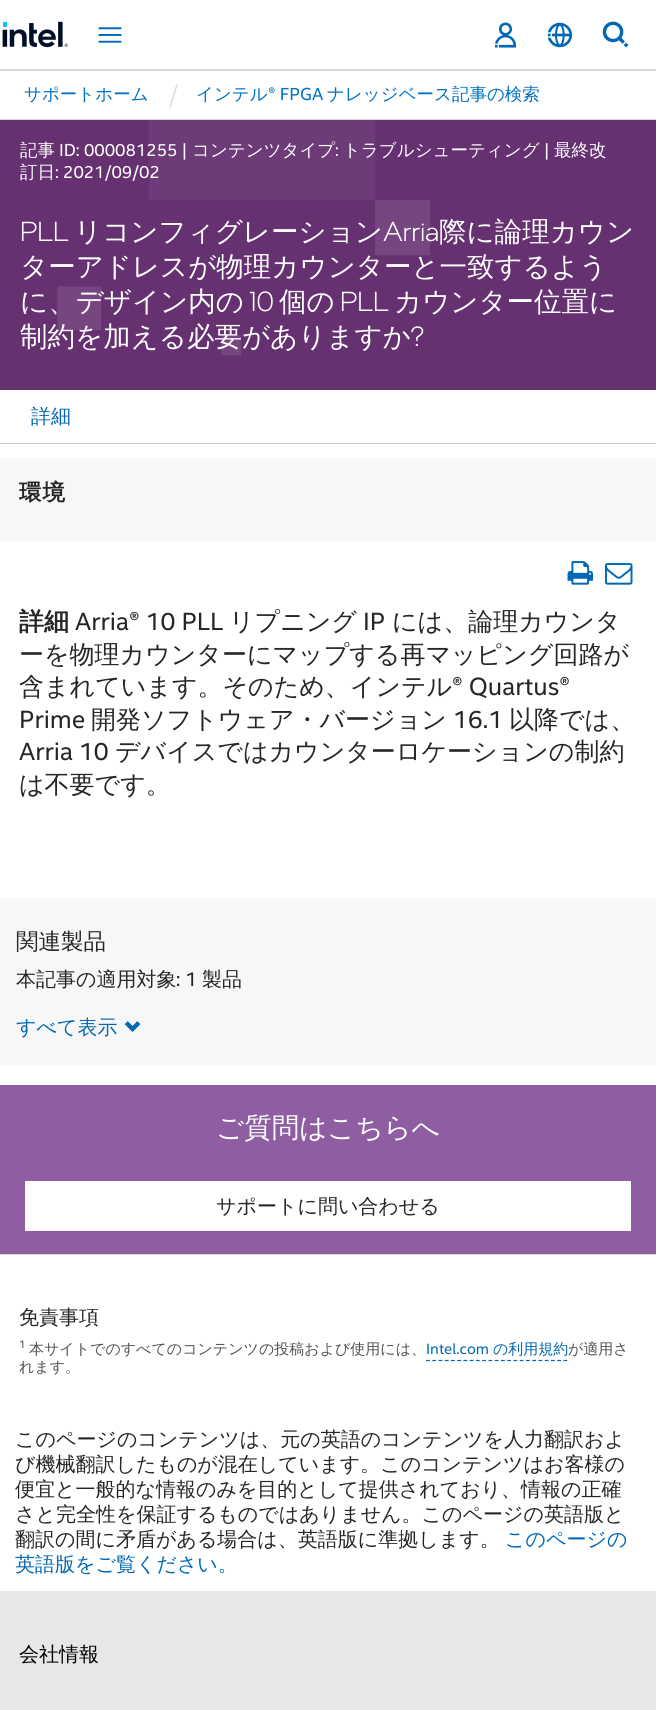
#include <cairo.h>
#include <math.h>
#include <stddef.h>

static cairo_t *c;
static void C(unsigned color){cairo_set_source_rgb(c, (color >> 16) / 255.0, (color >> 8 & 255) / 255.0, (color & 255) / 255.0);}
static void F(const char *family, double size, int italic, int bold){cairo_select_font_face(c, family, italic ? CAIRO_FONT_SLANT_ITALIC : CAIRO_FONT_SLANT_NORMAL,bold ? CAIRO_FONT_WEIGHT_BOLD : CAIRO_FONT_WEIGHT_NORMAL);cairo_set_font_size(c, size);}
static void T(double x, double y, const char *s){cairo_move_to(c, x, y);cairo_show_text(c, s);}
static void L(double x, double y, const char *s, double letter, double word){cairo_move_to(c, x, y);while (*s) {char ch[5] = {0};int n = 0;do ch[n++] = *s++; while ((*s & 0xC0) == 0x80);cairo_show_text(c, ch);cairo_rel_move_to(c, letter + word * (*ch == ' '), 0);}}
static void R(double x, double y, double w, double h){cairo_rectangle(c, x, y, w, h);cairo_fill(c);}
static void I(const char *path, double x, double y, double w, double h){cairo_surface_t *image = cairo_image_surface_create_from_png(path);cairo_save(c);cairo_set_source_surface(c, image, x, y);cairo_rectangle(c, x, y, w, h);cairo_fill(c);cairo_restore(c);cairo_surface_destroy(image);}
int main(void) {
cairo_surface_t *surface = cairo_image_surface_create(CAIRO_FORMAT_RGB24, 656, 1710);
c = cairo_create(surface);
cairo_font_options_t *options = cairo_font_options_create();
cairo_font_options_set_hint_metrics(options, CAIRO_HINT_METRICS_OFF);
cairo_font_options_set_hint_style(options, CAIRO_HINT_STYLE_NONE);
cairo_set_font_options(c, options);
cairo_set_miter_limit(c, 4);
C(0xffffff);
cairo_paint(c);
I("1.png",2,21,66,27);
I("2.png",98,27,24,16);
I("3.png",495,22,22,26);
I("4.png",547,22,26,26);
I("5.png",602,21,27,27);
C(0xd7d7d7);
R(0,69,656,2);
R(0,119,656,1);
F("WenQuanYi Zen Hei Medium",17.5,0,0);
C(0x0071c5);
T(24,100,"サポートホーム");
F("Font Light",25,0,0);
C(0xd7d7d7);
T(169,103,"/");
F("WenQuanYi Zen Hei Medium",17.5,0,0);
C(0x0071c5);
T(196,100,"インテル");
F("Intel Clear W",17.5,0,0);
T(268,100,"® FPGA");
F("WenQuanYi Zen Hei Medium",17.5,0,0);
T(327,100,"ナレッジベース記事の検索");
C(0x653171);
R(0,120,656,270);
I("6.png",57,120,373,236);
C(0xffffff);
T(20,156,"記事");
F("Intel Clear W",17.5,0,0);
T(59,156,"ID: 000081255 |");
F("WenQuanYi Zen Hei Medium",17.5,0,0);
T(192,156,"コンテンツタイプ");
F("Intel Clear W",17.5,0,0);
T(335,156,":");
F("WenQuanYi Zen Hei Medium",17.5,0,0);
T(343,156,"トラブルシューティング");
F("Intel Clear W",17.5,0,0);
T(544,156,"|");
F("WenQuanYi Zen Hei Medium",17.5,0,0);
T(554,156,"最終改");
T(20,178,"訂日");
F("Intel Clear W",17.5,0,0);
T(55,178,": 2021/09/02");
F("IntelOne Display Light",27.5,0,0);
T(20,241,"PLL");
F("WenQuanYi Zen Hei Medium",27.5,0,0);
T(74,241,"リコンフィグレーション");
F("IntelOne Display Light",27.5,0,0);
T(383,241,"Arria");
F("WenQuanYi Zen Hei Medium",27.5,0,0);
T(439,241,"際に論理カウン");
T(20,276,"ターアドレスが物理カウンターと一致するよう");
T(20,311,"に、デザイン内の");
F("IntelOne Display Light",27.5,0,0);
T(249,311,"10");
F("WenQuanYi Zen Hei Medium",27.5,0,0);
T(279,311,"個の");
F("IntelOne Display Light",27.5,0,0);
T(340,311,"PLL");
F("WenQuanYi Zen Hei Medium",27.5,0,0);
T(394,311,"カウンター位置に");
T(20,346,"制約を加える必要がありますか");
F("IntelOne Display Light",27.5,0,0);
T(411,346,"?");
C(0xcccccc);
R(0,443,656,1);
F("WenQuanYi Zen Hei Medium",20,0,0);
C(0x0068b5);
T(31,423,"詳細");
C(0xf7f7f7);
R(0,458,656,83);
F("WenQuanYi Zen Hei",22.5,0,1);
C(0x262626);
L(19,500,"環境",1,0);
I("7.png",567,561,27,24);
I("8.png",605,563,28,22);
F("WenQuanYi Zen Hei",25,0,1);
T(19,630,"詳細");
F("Intel Clear W",25,0,0);
T(75,630,"Arria® 10 PLL");
F("WenQuanYi Zen Hei Medium",25,0,0);
T(229,630,"リプニング");
F("Intel Clear W",25,0,0);
T(363,630,"IP");
F("WenQuanYi Zen Hei Medium",25,0,0);
T(392,630,"には、論理カウンタ");
T(19,663,"ーを物理カウンターにマップする再マッピング回路が");
T(19,695,"含まれています。そのため、インテル");
F("Intel Clear W",25,0,0);
T(452,695,"® Quartus®");
T(19,728,"Prime");
F("WenQuanYi Zen Hei Medium",25,0,0);
T(91,728,"開発ソフトウェア・バージョン");
F("Intel Clear W",25,0,0);
T(453,728,"16.1");
F("WenQuanYi Zen Hei Medium",25,0,0);
T(509,728,"以降では、");
F("Intel Clear W",25,0,0);
T(19,760,"Arria 10");
F("WenQuanYi Zen Hei Medium",25,0,0);
T(115,760,"デバイスではカウンターロケーションの制約");
T(19,793,"は不要です。");
C(0xf7f7f7);
R(0,898,656,167);
F("WenQuanYi Zen Hei Medium",22.5,0,0);
C(0x262626);
T(16,949,"関連製品");
F("WenQuanYi Zen Hei Medium",20,0,0);
T(16,986,"本記事の適用対象");
F("Intel Clear W",20,0,0);
T(176,986,": 1");
F("WenQuanYi Zen Hei Medium",20,0,0);
T(202,986,"製品");
C(0x0068b5);
T(16,1034,"すべて表示");
I("9.png",124,1021,17,11);
C(0x8f5da2);
R(0,1085,656,169);
F("WenQuanYi Zen Hei Medium",27.5,0,0);
C(0xffffff);
T(216,1137,"ご質問はこちらへ");
R(25,1181,606,50);
F("WenQuanYi Zen Hei Medium",20,0,0);
C(0x262626);
T(216,1213,"サポートに問い合わせる");
C(0xd7d7d7);
R(0,1254,656,1);
C(0x262626);
T(19,1324,"免責事項");
F("Intel Clear W",11,0,0);
C(0x525252);
T(19,1348,"1");
F("WenQuanYi Zen Hei Medium",15,0,0);
T(29,1354,"本サイトでのすべてのコンテンツの投稿および使用には、");
F("Intel Clear W",15,0,0);
C(0x0068b5);
T(426,1354,"Intel.com");
cairo_new_path(c);
cairo_move_to(c,426,1360.5);
cairo_line_to(c,568,1360.5);
cairo_set_line_width(c,1.2);
cairo_set_dash(c,(double[]){3.75,2.5},2,0);
cairo_stroke(c);
F("WenQuanYi Zen Hei Medium",15,0,0);
T(493,1354,"の利用規約");
C(0x525252);
T(568,1354,"が適用さ");
T(19,1372,"れます。");
F("WenQuanYi Zen Hei Medium",20,0,0);
C(0x262626);
T(15,1446,"このページのコンテンツは、元の英語のコンテンツを人力翻訳およ");
T(15,1471,"び機械翻訳したものが混在しています。このコンテンツはお客様の");
T(15,1496,"便宜と一般的な情報のみを目的として提供されており、情報の正確");
T(15,1521,"さと完全性を保証するものではありません。このページの英語版と");
T(15,1546,"翻訳の間に矛盾がある場合は、英語版に準拠します。");
C(0x0068b5);
T(505,1546,"このページの");
T(15,1571,"英語版をご覧ください。");
C(0xe7e7e7);
R(0,1591,656,119);
C(0x000000);
T(19,1661,"会社情報");
cairo_surface_write_to_png(surface, "o.png");
cairo_font_options_destroy(options);
cairo_destroy(c);
cairo_surface_destroy(surface);
return 0;
}
